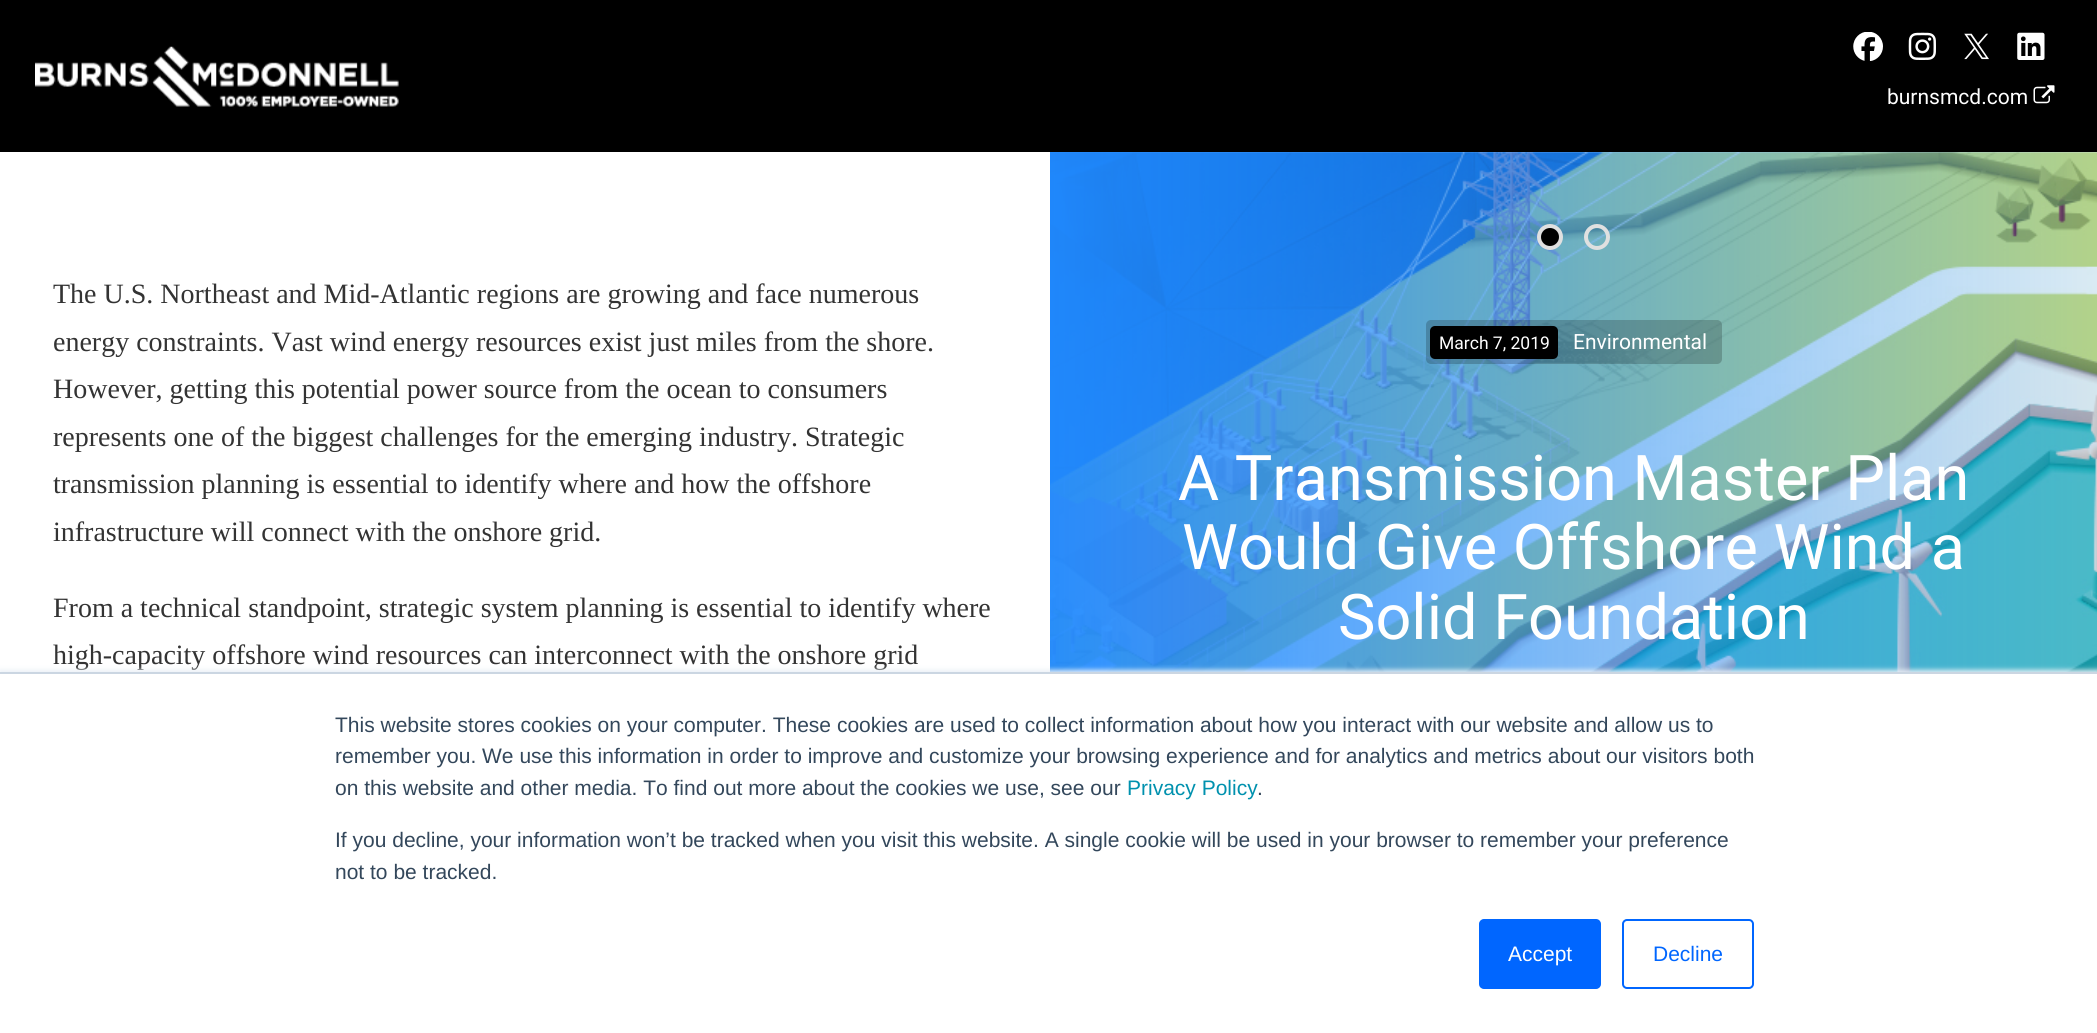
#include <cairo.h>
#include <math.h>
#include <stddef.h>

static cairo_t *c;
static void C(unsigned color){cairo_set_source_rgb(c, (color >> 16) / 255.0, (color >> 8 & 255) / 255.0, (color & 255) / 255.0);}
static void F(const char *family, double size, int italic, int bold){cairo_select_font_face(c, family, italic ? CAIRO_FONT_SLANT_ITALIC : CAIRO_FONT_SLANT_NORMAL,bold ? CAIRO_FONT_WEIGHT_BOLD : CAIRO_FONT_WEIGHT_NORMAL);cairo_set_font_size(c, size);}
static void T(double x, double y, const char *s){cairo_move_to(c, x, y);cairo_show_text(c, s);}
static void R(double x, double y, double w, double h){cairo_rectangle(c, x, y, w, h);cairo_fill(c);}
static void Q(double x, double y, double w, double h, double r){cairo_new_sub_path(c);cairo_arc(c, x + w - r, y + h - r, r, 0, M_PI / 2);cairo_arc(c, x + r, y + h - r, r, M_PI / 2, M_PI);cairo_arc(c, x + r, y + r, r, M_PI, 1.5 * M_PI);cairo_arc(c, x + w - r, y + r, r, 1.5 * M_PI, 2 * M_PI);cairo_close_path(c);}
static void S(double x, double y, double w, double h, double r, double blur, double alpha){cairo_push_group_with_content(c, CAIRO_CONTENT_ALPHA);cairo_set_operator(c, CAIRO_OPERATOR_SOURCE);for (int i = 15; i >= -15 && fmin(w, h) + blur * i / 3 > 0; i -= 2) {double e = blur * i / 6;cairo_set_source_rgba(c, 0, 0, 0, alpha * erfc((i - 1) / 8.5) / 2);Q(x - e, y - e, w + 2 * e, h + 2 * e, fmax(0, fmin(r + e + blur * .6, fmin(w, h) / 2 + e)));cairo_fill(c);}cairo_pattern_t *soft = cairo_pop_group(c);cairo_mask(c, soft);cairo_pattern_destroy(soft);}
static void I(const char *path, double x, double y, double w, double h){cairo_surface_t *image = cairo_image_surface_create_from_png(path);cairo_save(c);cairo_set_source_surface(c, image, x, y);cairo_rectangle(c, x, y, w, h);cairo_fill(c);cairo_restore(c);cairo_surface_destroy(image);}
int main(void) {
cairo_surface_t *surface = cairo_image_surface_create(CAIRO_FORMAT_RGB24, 2097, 1033);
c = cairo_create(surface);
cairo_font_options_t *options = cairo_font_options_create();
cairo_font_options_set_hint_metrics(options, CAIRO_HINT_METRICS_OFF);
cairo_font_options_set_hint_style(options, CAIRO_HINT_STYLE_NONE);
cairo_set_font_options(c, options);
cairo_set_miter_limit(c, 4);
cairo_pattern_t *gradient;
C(0xffffff);
cairo_paint(c);
C(0x000000);
R(0,0,2097,152);
I("1.png",35,46,364,61);
I("2.png",1853,32,30,29);
I("3.png",1908,32,28,28);
I("4.png",1964,33,25,27);
I("5.png",2017,32,28,28);
F("Roboto",21,0,0);
C(0xffffff);
T(1887,104,"burnsmcd.com");
I("6.png",2033,85,22,19);
F("Liberation Serif",28,0,0);
C(0x333333);
T(53,303,"The U.S. Northeast and Mid-Atlantic regions are growing and face numerous");
T(53,351,"energy constraints. Vast wind energy resources exist just miles from the shore.");
T(53,398,"However, getting this potential power source from the ocean to consumers");
T(53,446,"represents one of the biggest challenges for the emerging industry. Strategic");
T(53,493,"transmission planning is essential to identify where and how the offshore");
T(53,541,"infrastructure will connect with the onshore grid.");
T(53,617,"From a technical standpoint, strategic system planning is essential to identify where");
T(53,664,"high-capacity offshore wind resources can interconnect with the onshore grid");
I("7.png",1050,152,1047,520);
gradient = cairo_pattern_create_linear(1050,593,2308,593);
cairo_pattern_add_color_stop_rgba(gradient,0,0.129,0.541,1,.95);
cairo_pattern_add_color_stop_rgba(gradient,1,0.129,0.541,1,0);
cairo_set_source(c,gradient);
cairo_pattern_destroy(gradient);
R(1050,152,1047,520);
C(0x000000);
cairo_arc(c,1550,237,11,0,2 * M_PI);
cairo_fill_preserve(c);
C(0xe0e0e0);
cairo_set_line_width(c,4);
cairo_stroke(c);
cairo_arc(c,1597,237,11,0,2 * M_PI);
cairo_stroke(c);
cairo_set_source_rgba(c,0,0,0,0.2);
Q(1426,320,296,44,5);
cairo_fill(c);
C(0x000000);
Q(1430,326,128,33,5);
cairo_fill(c);
F("Roboto",17.5,0,0);
C(0xffffff);
T(1439,349,"March 7, 2019");
F("Roboto",21,0,0);
T(1573,349,"Environmental");
F("Roboto",63,0,0);
T(1178,500,"A Transmission Master Plan");
T(1182,569,"Would Give Offshore Wind a");
T(1338,639,"Solid Foundation");
C(0xeaf0f6);
S(0,670,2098,363,0,2.5,1);
C(0xffffff);
R(0,674,2097,359);
C(0xcbd6e2);
R(0,672,2097,2);
F("Liberation Sans",21,0,0);
C(0x33475b);
T(335,732,"This website stores cookies on your computer. These cookies are used to collect information about how you interact with our website and allow us to");
T(335,763,"remember you. We use this information in order to improve and customize your browsing experience and for analytics and metrics about our visitors both");
T(335,795,"on this website and other media. To find out more about the cookies we use, see our");
C(0x0091ae);
T(1127,795,"Privacy Policy");
C(0x33475b);
T(1257,795,".");
T(335,847,"If you decline, your information won’t be tracked when you visit this website. A single cookie will be used in your browser to remember your preference");
T(335,879,"not to be tracked.");
C(0x0066ff);
Q(1480,920,120,68,4);
cairo_fill_preserve(c);
cairo_set_line_width(c,2);
cairo_stroke(c);
C(0xffffff);
T(1508,961,"Accept");
Q(1623,920,130,68,4);
C(0x0066ff);
cairo_stroke(c);
T(1653,961,"Decline");
cairo_surface_write_to_png(surface, "o.png");
cairo_font_options_destroy(options);
cairo_destroy(c);
cairo_surface_destroy(surface);
return 0;
}
